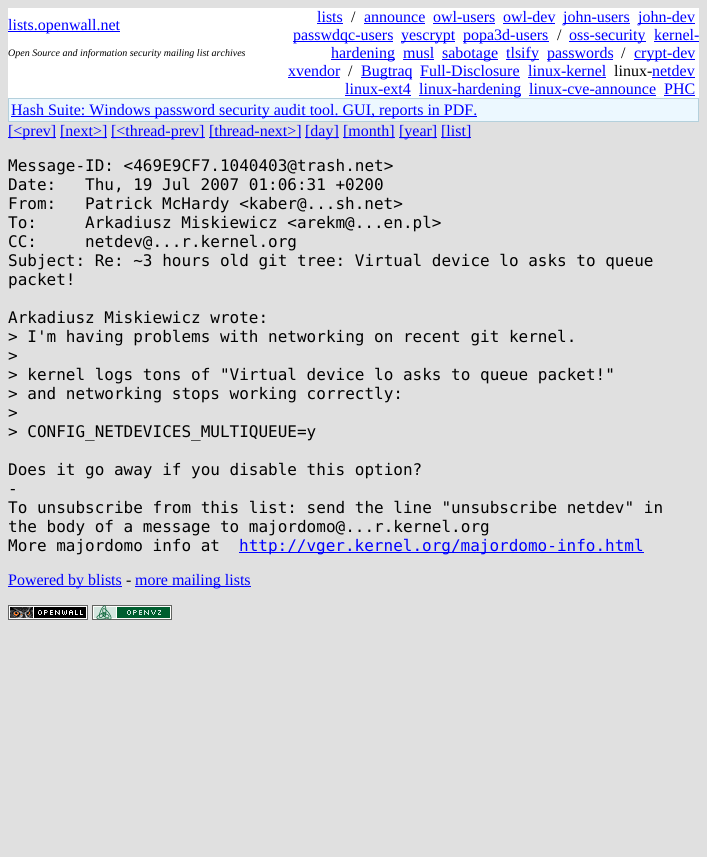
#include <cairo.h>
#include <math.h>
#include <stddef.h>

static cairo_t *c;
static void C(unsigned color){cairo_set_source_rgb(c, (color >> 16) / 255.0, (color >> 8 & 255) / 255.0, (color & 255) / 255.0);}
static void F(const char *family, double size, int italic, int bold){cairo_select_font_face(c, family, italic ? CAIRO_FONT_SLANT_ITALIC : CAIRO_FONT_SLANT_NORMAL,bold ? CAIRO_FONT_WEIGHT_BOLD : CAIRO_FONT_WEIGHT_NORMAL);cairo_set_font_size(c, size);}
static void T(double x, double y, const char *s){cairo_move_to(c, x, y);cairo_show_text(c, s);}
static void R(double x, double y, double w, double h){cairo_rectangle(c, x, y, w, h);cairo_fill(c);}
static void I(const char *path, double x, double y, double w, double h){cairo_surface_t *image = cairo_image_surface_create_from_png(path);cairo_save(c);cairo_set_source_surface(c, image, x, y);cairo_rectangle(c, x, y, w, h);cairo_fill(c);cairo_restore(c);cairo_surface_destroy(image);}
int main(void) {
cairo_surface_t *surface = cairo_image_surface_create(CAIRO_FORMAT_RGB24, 707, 857);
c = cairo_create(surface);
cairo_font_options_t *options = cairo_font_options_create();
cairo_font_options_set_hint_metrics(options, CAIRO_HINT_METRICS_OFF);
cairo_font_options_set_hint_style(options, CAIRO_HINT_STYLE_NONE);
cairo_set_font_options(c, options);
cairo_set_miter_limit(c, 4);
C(0xe0e0e0);
cairo_paint(c);
C(0xffffff);
R(8,8,691,90);
C(0x0000ff);
R(8,31,112,1);
F("Liberation Serif",16,0,0);
T(8,30,"lists.openwall.net");
T(317,22,"lists");
R(317,23,26,1);
C(0x000000);
T(351,22,"/");
C(0x0000ff);
T(364,22,"announce");
R(364,23,61,1);
T(433,22,"owl-users");
R(433,23,62,1);
T(503,22,"owl-dev");
R(503,23,52,1);
R(563,23,67,1);
T(563,22,"john-users");
R(638,23,57,1);
T(638,22,"john-dev");
R(293,41,100,1);
T(293,40,"passwdqc-users");
R(401,41,54,1);
T(401,40,"yescrypt");
R(463,41,86,1);
T(463,40,"popa3d-users");
C(0x000000);
T(557,40,"/");
C(0x0000ff);
R(569,41,77,1);
T(569,40,"oss-security");
T(654,40,"kernel-");
R(654,41,45,1);
R(331,59,64,1);
T(331,58,"hardening");
T(403,58,"musl");
R(403,59,31,1);
R(442,59,56,1);
T(442,58,"sabotage");
R(506,59,33,1);
T(506,58,"tlsify");
R(547,59,66,1);
T(547,58,"passwords");
C(0x000000);
T(621,58,"/");
C(0x0000ff);
R(634,59,61,1);
T(634,58,"crypt-dev");
T(288,76,"xvendor");
R(288,77,52,1);
C(0x000000);
T(348,76,"/");
C(0x0000ff);
R(361,77,51,1);
T(361,76,"Bugtraq");
T(420,76,"Full-Disclosure");
R(420,77,100,1);
T(528,76,"linux-kernel");
R(528,77,78,1);
C(0x000000);
T(614,76,"linux-");
C(0x0000ff);
T(652,76,"netdev");
R(652,77,43,1);
T(345,94,"linux-ext4");
R(345,95,66,1);
R(419,95,102,1);
T(419,94,"linux-hardening");
T(529,94,"linux-cve-announce");
R(529,95,127,1);
T(664,94,"PHC");
R(664,95,31,1);
F("Liberation Serif",10,1,0);
C(0x000000);
T(8,56,"Open Source and information security mailing list archives");
C(0xb4d0dc);
R(8,98,691,24);
C(0xecf8ff);
R(9,99,689,22);
C(0x0000ff);
R(11,116,466,1);
F("Liberation Serif",16,0,0);
T(11,115,"Hash Suite: Windows password security audit tool. GUI, reports in PDF.");
R(8,137,48,1);
T(8,136,"[<prev]");
R(60,137,47,1);
T(60,136,"[next>]");
R(111,137,94,1);
T(111,136,"[<thread-prev]");
R(209,137,92,1);
T(209,136,"[thread-next>]");
R(305,137,34,1);
T(305,136,"[day]");
R(343,137,52,1);
T(343,136,"[month]");
R(399,137,38,1);
T(399,136,"[year]");
R(441,137,30,1);
T(441,136,"[list]");
F("DejaVu Sans Mono",16,0,0);
C(0x000000);
T(8,171,"Message-ID: <469E9CF7.1040403@trash.net>");
T(8,190,"Date:");
T(85,190,"Thu, 19 Jul 2007 01:06:31 +0200");
T(8,209,"From:");
T(85,209,"Patrick McHardy <kaber@...sh.net>");
T(8,228,"To:");
T(85,228,"Arkadiusz Miskiewicz <arekm@...en.pl>");
T(8,247,"CC:");
T(85,247,"netdev@...r.kernel.org");
T(8,266,"Subject: Re: ~3 hours old git tree: Virtual device lo asks to queue");
T(8,285,"packet!");
T(8,323,"Arkadiusz Miskiewicz wrote:");
T(8,342,"> I'm having problems with networking on recent git kernel.");
T(8,361,">");
T(8,380,"> kernel logs tons of \"Virtual device lo asks to queue packet!\"");
T(8,399,"> and networking stops working correctly:");
T(8,418,">");
T(8,437,"> CONFIG_NETDEVICES_MULTIQUEUE=y");
T(8,475,"Does it go away if you disable this option?");
T(8,494,"-");
T(8,513,"To unsubscribe from this list: send the line \"unsubscribe netdev\" in");
T(8,532,"the body of a message to majordomo@...r.kernel.org");
T(8,551,"More majordomo info at");
C(0x0000ff);
R(239,552,405,1);
T(239,551,"http://vger.kernel.org/majordomo-info.html");
R(8,586,114,1);
F("Liberation Serif",16,0,0);
T(8,585,"Powered by blists");
C(0x000000);
T(126,585,"-");
C(0x0000ff);
R(135,586,116,1);
T(135,585,"more mailing lists");
I("1.png",8,605,80,15);
I("2.png",92,605,80,15);
cairo_surface_write_to_png(surface, "o.png");
cairo_font_options_destroy(options);
cairo_destroy(c);
cairo_surface_destroy(surface);
return 0;
}
